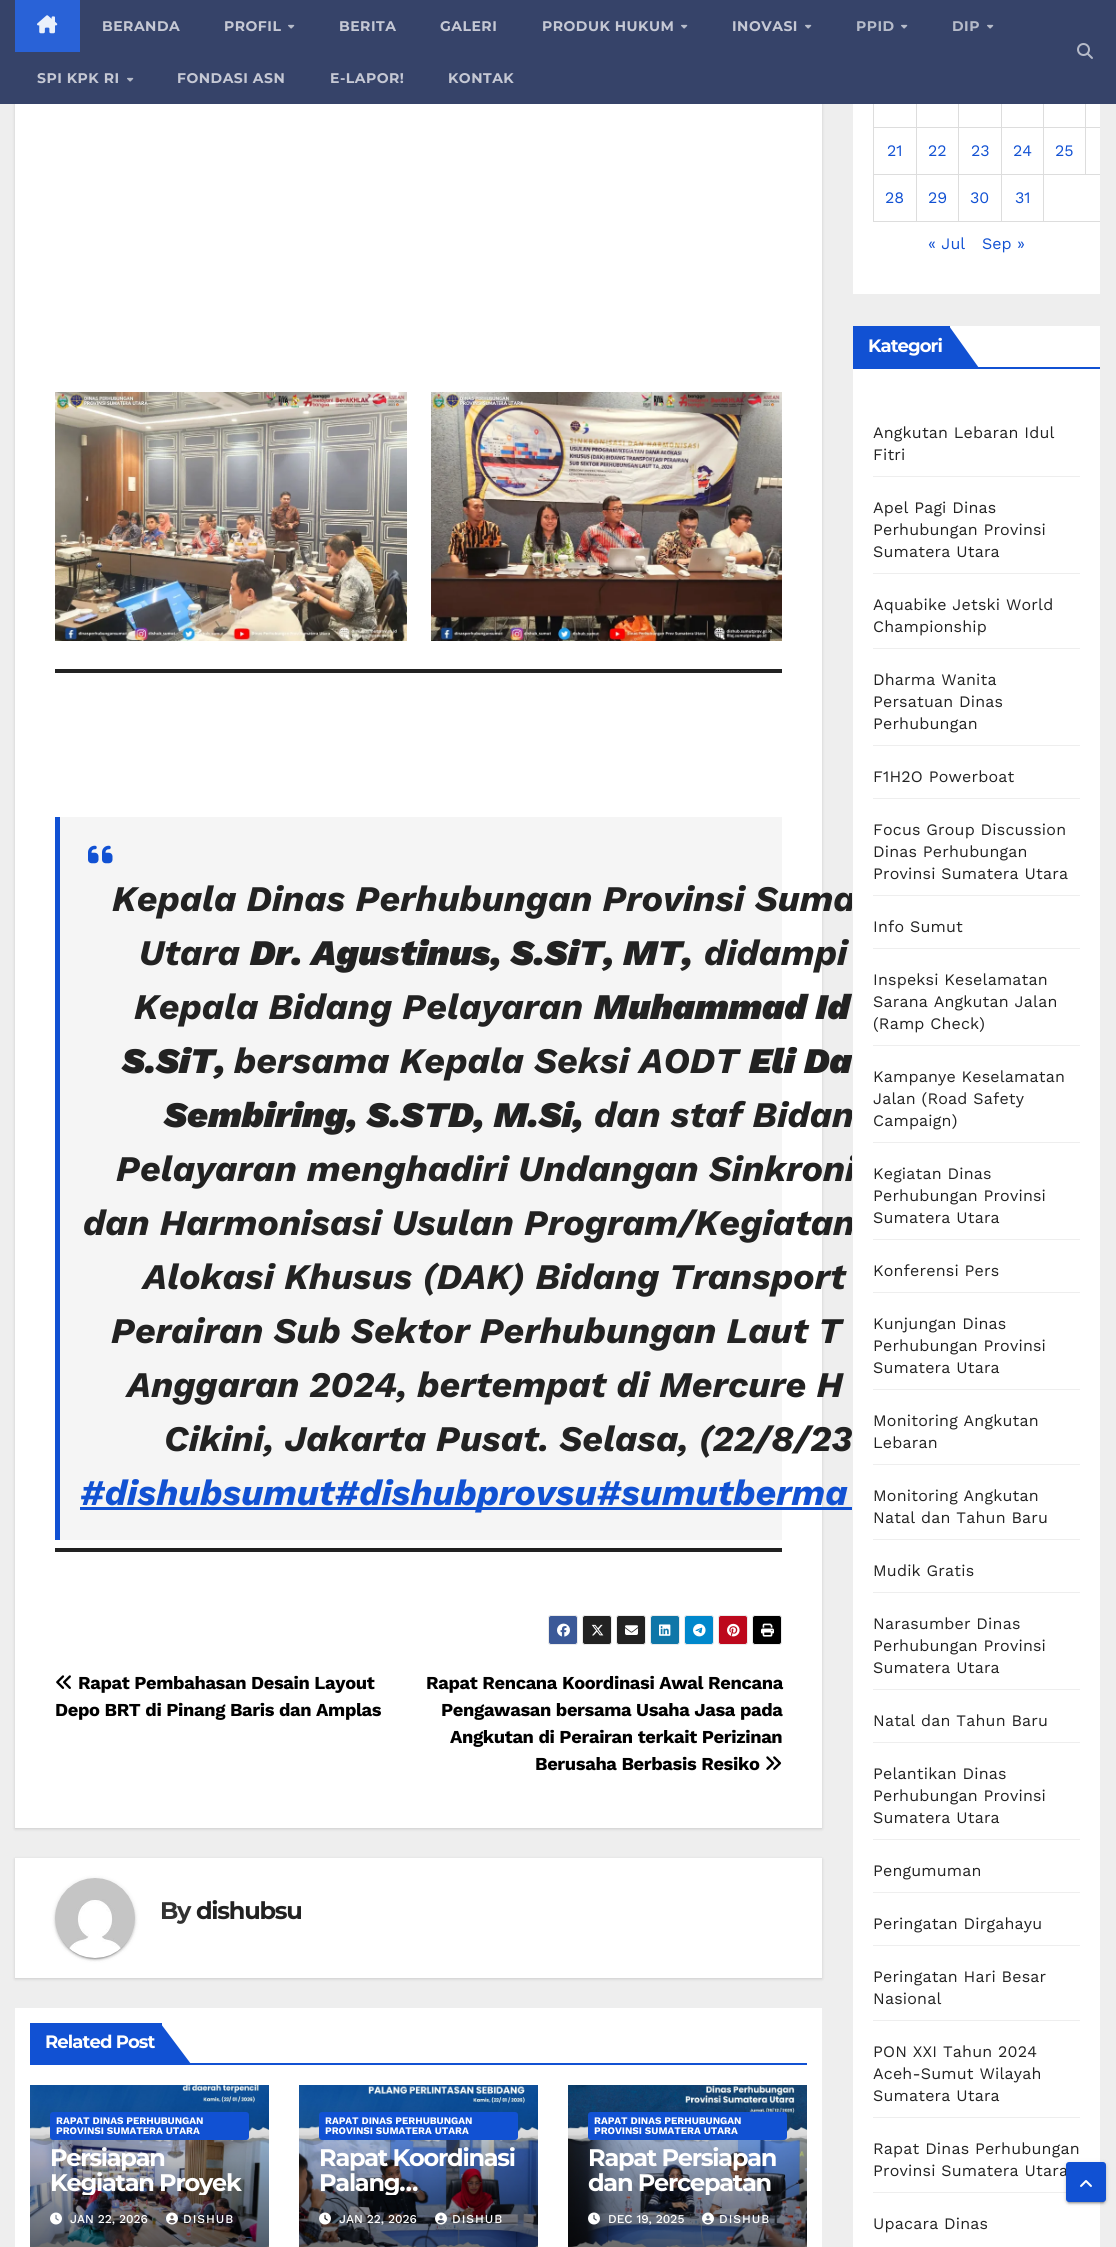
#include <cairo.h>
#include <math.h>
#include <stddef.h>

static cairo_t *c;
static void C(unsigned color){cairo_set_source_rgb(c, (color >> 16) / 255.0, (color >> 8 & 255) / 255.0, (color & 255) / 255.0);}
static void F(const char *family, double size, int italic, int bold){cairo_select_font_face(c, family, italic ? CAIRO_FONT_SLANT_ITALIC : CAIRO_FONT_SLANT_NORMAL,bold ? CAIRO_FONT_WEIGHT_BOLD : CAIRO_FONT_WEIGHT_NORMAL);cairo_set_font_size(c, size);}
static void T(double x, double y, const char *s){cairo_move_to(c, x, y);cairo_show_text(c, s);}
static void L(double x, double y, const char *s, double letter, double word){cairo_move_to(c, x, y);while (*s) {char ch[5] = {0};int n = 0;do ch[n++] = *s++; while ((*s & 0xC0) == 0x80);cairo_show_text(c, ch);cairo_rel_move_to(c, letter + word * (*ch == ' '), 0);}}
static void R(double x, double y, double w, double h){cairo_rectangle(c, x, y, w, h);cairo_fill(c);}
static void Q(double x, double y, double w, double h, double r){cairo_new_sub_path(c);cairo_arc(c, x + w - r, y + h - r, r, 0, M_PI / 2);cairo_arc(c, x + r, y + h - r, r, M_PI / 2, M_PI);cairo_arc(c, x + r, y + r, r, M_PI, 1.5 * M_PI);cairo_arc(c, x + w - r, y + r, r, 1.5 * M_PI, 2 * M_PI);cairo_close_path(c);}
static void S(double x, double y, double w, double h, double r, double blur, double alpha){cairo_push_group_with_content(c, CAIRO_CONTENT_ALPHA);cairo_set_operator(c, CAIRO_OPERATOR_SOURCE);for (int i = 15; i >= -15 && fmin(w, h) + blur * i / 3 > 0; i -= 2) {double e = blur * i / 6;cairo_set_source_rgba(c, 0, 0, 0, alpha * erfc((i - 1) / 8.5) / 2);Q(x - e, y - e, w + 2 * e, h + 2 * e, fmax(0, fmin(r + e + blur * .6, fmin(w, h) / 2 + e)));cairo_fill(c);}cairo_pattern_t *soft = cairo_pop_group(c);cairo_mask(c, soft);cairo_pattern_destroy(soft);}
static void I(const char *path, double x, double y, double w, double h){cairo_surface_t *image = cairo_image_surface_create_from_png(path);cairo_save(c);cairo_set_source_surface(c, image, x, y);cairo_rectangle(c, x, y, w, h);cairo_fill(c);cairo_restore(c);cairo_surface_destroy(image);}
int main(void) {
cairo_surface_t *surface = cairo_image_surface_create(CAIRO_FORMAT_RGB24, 1116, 2247);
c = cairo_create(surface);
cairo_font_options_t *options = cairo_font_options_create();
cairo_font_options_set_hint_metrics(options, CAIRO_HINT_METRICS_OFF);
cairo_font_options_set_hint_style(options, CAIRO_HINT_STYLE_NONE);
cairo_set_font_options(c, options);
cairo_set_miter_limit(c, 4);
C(0xeeeeee);
cairo_paint(c);
C(0x000000);
S(15,-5,807,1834,0,1.5,.15);
C(0x364369);
R(0,0,1116,104);
C(0x2962d7);
R(15,0,65,52);
I("1.png",37,15,21,19);
F("Montserrat",14,0,1);
C(0xc5c8d4);
L(102,31,"BERANDA",.5,0);
L(224,31,"PROFIL",.5,0);
I("2.png",288,24,7,5);
L(339,31,"BERITA",.5,0);
L(440,31,"GALERI",.5,0);
L(542,31,"PRODUK HUKUM",.5,0);
I("2.png",681,24,7,5);
L(732,31,"INOVASI",.5,0);
I("2.png",805,24,7,5);
C(0xb6bbc9);
L(856,31,"PPID",.5,0);
I("2.png",901,24,7,5);
L(952,31,"DIP",.5,0);
I("2.png",987,24,7,5);
C(0xc5c8d4);
L(37,83,"SPI KPK RI",.5,0);
I("2.png",127,77,7,5);
L(177,83,"FONDASI ASN",.5,0);
L(330,83,"E-LAPOR!",.5,0);
L(448,83,"KONTAK",.5,0);
I("3.png",1077,43,16,16);
C(0xffffff);
R(15,104,807,1724);
I("4.png",55,392,352,249);
I("5.png",431,392,351,249);
C(0x222222);
R(55,669,727,4);
R(55,1548,727,4);
C(0xf5f5f5);
R(60,817,722,723);
C(0x1151d3);
R(55,817,5,723);
I("6.png",88,845,25,19);
F("Work Sans",36,1,1);
C(0x222222);
T(112,911,"Kepala Dinas Perhubungan Provinsi Suma");
T(139,965,"Utara");
F("Work Sans Black",36,1,0);
T(250,965,"Dr. Agustinus, S.SiT, MT,");
F("Work Sans",36,1,1);
T(704,965,"didampi");
T(134,1019,"Kepala Bidang Pelayaran");
F("Work Sans Black",36,1,0);
T(594,1019,"Muhammad Id");
T(122,1073,"S.SiT,");
F("Work Sans",36,1,1);
T(234,1073,"bersama Kepala Seksi AODT");
F("Work Sans Black",36,1,0);
T(749,1073,"Eli Da");
T(164,1127,"Sembiring, S.STD, M.Si,");
F("Work Sans",36,1,1);
T(594,1127,"dan staf Bidan");
T(116,1181,"Pelayaran menghadiri Undangan Sinkroni");
T(83,1235,"dan Harmonisasi Usulan Program/Kegiatan");
T(143,1289,"Alokasi Khusus (DAK) Bidang Transport");
T(111,1343,"Perairan Sub Sektor Perhubungan Laut T");
T(127,1397,"Anggaran 2024, bertempat di Mercure H");
T(164,1451,"Cikini, Jakarta Pusat. Selasa, (22/8/23");
C(0x1151d3);
R(80,1507,516,3);
T(80,1505,"#dishubsumut#dishubprovsu#sumutberma");
R(596,1507,256,3);
C(0x3b5998);
Q(548.5,1615.5,29,29,2.5);
cairo_fill_preserve(c);
C(0xebebeb);
cairo_set_line_width(c,1);
cairo_stroke(c);
I("7.png",557,1623,13,14);
C(0x222222);
Q(582.5,1615.5,29,29,2.5);
cairo_fill_preserve(c);
C(0xebebeb);
cairo_stroke(c);
I("8.png",591,1624,13,12);
C(0x222222);
Q(616.5,1615.5,29,29,2.5);
cairo_fill_preserve(c);
C(0xebebeb);
cairo_stroke(c);
I("9.png",625,1625,13,10);
C(0x0e76a8);
Q(650.5,1615.5,29,29,2.5);
cairo_fill_preserve(c);
C(0xebebeb);
cairo_stroke(c);
I("10.png",659,1624,12,12);
C(0x0088cc);
Q(684.5,1615.5,29,29,2.5);
cairo_fill_preserve(c);
C(0xebebeb);
cairo_stroke(c);
I("11.png",693,1623,13,14);
C(0xbd081c);
Q(718.5,1615.5,29,29,2.5);
cairo_fill_preserve(c);
C(0xebebeb);
cairo_stroke(c);
I("12.png",727,1623,13,14);
C(0x000000);
Q(752.5,1615.5,29,29,2.5);
cairo_fill_preserve(c);
C(0xebebeb);
cairo_stroke(c);
I("13.png",761,1623,13,14);
I("14.png",56,1675,15,14);
F("Work Sans",18.25,0,1);
C(0x000000);
L(78,1689,"Rapat Pembahasan Desain Layout",-.35,0);
L(55,1716,"Depo BRT di Pinang Baris dan Amplas",-.35,0);
L(426,1689,"Rapat Rencana Koordinasi Awal Rencana",-.35,0);
L(441,1716,"Pengawasan bersama Usaha Jasa pada",-.35,0);
L(450,1743,"Angkutan di Perairan terkait Perizinan",-.35,0);
L(535,1770,"Berusaha Berbasis Resiko",-.35,0);
I("15.png",766,1756,16,14);
C(0x000000);
S(15,1859,807,120,0,1.5,.15);
C(0xffffff);
R(15,1858,807,120);
C(0x000000);
S(55,1879,80,80,40,2.5,.12);
S(57,1883,76,76,38,.5,.2);
S(55,1880,80,80,40,1,.14);
I("16.png",55,1878,80,80);
F("Montserrat",24,0,1);
C(0x333333);
L(160,1919,"By",-1.25,0);
C(0x222222);
L(196,1919,"dishubsu",-1.25,0);
C(0xffffff);
R(15,2008,807,239);
C(0x1151d3);
R(30,2063,777,2);
R(30,2023,132,40);
F("Montserrat",18,0,1);
C(0xffffff);
L(45,2048,"Related Post",-.9,0);
C(0x1151d3);
cairo_new_path(c);
cairo_move_to(c,191,2064);
cairo_line_to(c,161,2064);
cairo_line_to(c,161,2024);
cairo_close_path(c);
cairo_fill(c);
I("17.png",30,2085,239,162);
Q(50,2112,199,28,3);
cairo_fill(c);
F("Work Sans",10,0,1);
C(0xffffff);
T(56,2124,"RAPAT DINAS PERHUBUNGAN");
T(56,2134,"PROVINSI SUMATERA UTARA");
F("Montserrat",24,0,1);
L(50,2166,"Persiapan",-1.25,0);
cairo_save(c);
cairo_rectangle(c,50,2145,199,50);
cairo_clip(c);
L(50,2191,"Kegiatan Proyek",-1.25,0);
cairo_restore(c);
I("18.png",50,2212,12,13);
F("Work Sans Medium",12,0,0);
T(70,2223,"JAN 22, 2026");
I("19.png",166,2212,12,13);
L(183,2223,"DISHUB",1,0);
I("20.png",299,2085,239,162);
C(0x1151d3);
Q(319,2112,199,28,3);
cairo_fill(c);
F("Work Sans",10,0,1);
C(0xffffff);
T(325,2124,"RAPAT DINAS PERHUBUNGAN");
T(325,2134,"PROVINSI SUMATERA UTARA");
F("Montserrat",24,0,1);
L(319,2166,"Rapat Koordinasi",-1.25,0);
cairo_save(c);
cairo_rectangle(c,319,2145,199,50);
cairo_clip(c);
L(319,2191,"Palang…",-1.25,0);
cairo_restore(c);
I("21.png",319,2212,12,13);
F("Work Sans Medium",12,0,0);
T(339,2223,"JAN 22, 2026");
I("22.png",435,2212,12,13);
L(452,2223,"DISHUB",1,0);
I("23.png",568,2085,239,162);
C(0x1151d3);
Q(588,2112,199,28,3);
cairo_fill(c);
F("Work Sans",10,0,1);
C(0xffffff);
T(594,2124,"RAPAT DINAS PERHUBUNGAN");
T(594,2134,"PROVINSI SUMATERA UTARA");
F("Montserrat",24,0,1);
L(588,2166,"Rapat Persiapan",-1.25,0);
cairo_save(c);
cairo_rectangle(c,588,2145,199,50);
cairo_clip(c);
L(588,2191,"dan Percepatan",-1.25,0);
cairo_restore(c);
I("24.png",588,2212,12,13);
F("Work Sans Medium",12,0,0);
T(608,2223,"DEC 19, 2025");
I("25.png",702,2212,12,13);
L(719,2223,"DISHUB",1,0);
R(853,104,247,190);
C(0xdddddd);
R(1085,127,15,1);
R(1043,174,57,1);
R(1085,127,1,48);
R(1043,127,43,1);
R(1043,221,57,1);
R(1043,174,1,48);
R(1001,174,43,1);
R(1043,127,1,48);
R(1001,127,43,1);
R(1001,221,43,1);
R(1001,174,1,48);
R(958,174,44,1);
R(1001,127,1,48);
R(958,127,44,1);
R(958,221,44,1);
R(958,174,1,48);
R(916,174,43,1);
R(958,127,1,48);
R(916,127,43,1);
R(916,221,43,1);
R(916,174,1,48);
R(873,174,44,1);
R(916,127,1,48);
R(873,127,44,1);
R(916,104,1,24);
R(958,104,1,24);
R(1001,104,1,24);
R(1043,104,1,24);
R(1085,104,1,24);
R(873,221,44,1);
R(873,174,1,48);
R(873,104,1,71);
F("Work Sans",16,0,0);
C(0x1151d3);
T(887,156,"21");
T(928,156,"22");
T(971,156,"23");
T(1013,156,"24");
T(1055,156,"25");
T(885,203,"28");
T(928,203,"29");
T(970,203,"30");
T(1015,203,"31");
T(928,249,"« Jul");
T(982,249,"Sep »");
C(0xffffff);
cairo_rectangle(c,852.5,325.5,248,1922);
cairo_fill_preserve(c);
C(0xeeeeee);
cairo_stroke(c);
C(0x1151d3);
R(853,326,97,41);
F("Montserrat",18,0,1);
C(0xffffff);
L(868,352,"Kategori",-.9,0);
C(0x1151d3);
cairo_new_path(c);
cairo_move_to(c,979,368);
cairo_line_to(c,949,368);
cairo_line_to(c,949,326);
cairo_close_path(c);
cairo_fill(c);
R(853,367,247,2);
C(0xeeeeee);
R(873,476,207,1);
F("Work Sans",16,0,0);
C(0x222222);
L(873,438,"Angkutan Lebaran Idul",.2,0);
L(873,460,"Fitri",.2,0);
C(0xeeeeee);
R(873,573,207,1);
C(0x222222);
L(873,513,"Apel Pagi Dinas",.2,0);
L(873,535,"Perhubungan Provinsi",.2,0);
L(873,557,"Sumatera Utara",.2,0);
C(0xeeeeee);
R(873,648,207,1);
C(0x222222);
L(873,610,"Aquabike Jetski World",.2,0);
L(873,632,"Championship",.2,0);
C(0xeeeeee);
R(873,745,207,1);
C(0x222222);
L(873,685,"Dharma Wanita",.2,0);
L(873,707,"Persatuan Dinas",.2,0);
L(873,729,"Perhubungan",.2,0);
C(0xeeeeee);
R(873,798,207,1);
C(0x222222);
L(873,782,"F1H2O Powerboat",.2,0);
C(0xeeeeee);
R(873,895,207,1);
C(0x222222);
L(873,835,"Focus Group Discussion",.2,0);
L(873,857,"Dinas Perhubungan",.2,0);
L(873,879,"Provinsi Sumatera Utara",.2,0);
C(0xeeeeee);
R(873,948,207,1);
C(0x222222);
L(873,932,"Info Sumut",.2,0);
C(0xeeeeee);
R(873,1045,207,1);
C(0x222222);
L(873,985,"Inspeksi Keselamatan",.2,0);
L(873,1007,"Sarana Angkutan Jalan",.2,0);
L(873,1029,"(Ramp Check)",.2,0);
C(0xeeeeee);
R(873,1142,207,1);
C(0x222222);
L(873,1082,"Kampanye Keselamatan",.2,0);
L(873,1104,"Jalan (Road Safety",.2,0);
L(873,1126,"Campaign)",.2,0);
C(0xeeeeee);
R(873,1239,207,1);
C(0x222222);
L(873,1179,"Kegiatan Dinas",.2,0);
L(873,1201,"Perhubungan Provinsi",.2,0);
L(873,1223,"Sumatera Utara",.2,0);
C(0xeeeeee);
R(873,1292,207,1);
C(0x222222);
L(873,1276,"Konferensi Pers",.2,0);
C(0xeeeeee);
R(873,1389,207,1);
C(0x222222);
L(873,1329,"Kunjungan Dinas",.2,0);
L(873,1351,"Perhubungan Provinsi",.2,0);
L(873,1373,"Sumatera Utara",.2,0);
C(0xeeeeee);
R(873,1464,207,1);
C(0x222222);
L(873,1426,"Monitoring Angkutan",.2,0);
L(873,1448,"Lebaran",.2,0);
C(0xeeeeee);
R(873,1539,207,1);
C(0x222222);
L(873,1501,"Monitoring Angkutan",.2,0);
L(873,1523,"Natal dan Tahun Baru",.2,0);
C(0xeeeeee);
R(873,1592,207,1);
C(0x222222);
L(873,1576,"Mudik Gratis",.2,0);
C(0xeeeeee);
R(873,1689,207,1);
C(0x222222);
L(873,1629,"Narasumber Dinas",.2,0);
L(873,1651,"Perhubungan Provinsi",.2,0);
L(873,1673,"Sumatera Utara",.2,0);
C(0xeeeeee);
R(873,1742,207,1);
C(0x222222);
L(873,1726,"Natal dan Tahun Baru",.2,0);
C(0xeeeeee);
R(873,1839,207,1);
C(0x222222);
L(873,1779,"Pelantikan Dinas",.2,0);
L(873,1801,"Perhubungan Provinsi",.2,0);
L(873,1823,"Sumatera Utara",.2,0);
C(0xeeeeee);
R(873,1892,207,1);
C(0x222222);
L(873,1876,"Pengumuman",.2,0);
C(0xeeeeee);
R(873,1945,207,1);
C(0x222222);
L(873,1929,"Peringatan Dirgahayu",.2,0);
C(0xeeeeee);
R(873,2020,207,1);
C(0x222222);
L(873,1982,"Peringatan Hari Besar",.2,0);
L(873,2004,"Nasional",.2,0);
C(0xeeeeee);
R(873,2117,207,1);
C(0x222222);
L(873,2057,"PON XXI Tahun 2024",.2,0);
L(873,2079,"Aceh-Sumut Wilayah",.2,0);
L(873,2101,"Sumatera Utara",.2,0);
C(0xeeeeee);
R(873,2192,193,1);
C(0x222222);
L(873,2154,"Rapat Dinas Perhubungan",.2,0);
L(873,2176,"Provinsi Sumatera Utara",.2,0);
L(873,2229,"Upacara Dinas",.2,0);
C(0x000000);
S(1066,2163,40,40,3,2.5,.12);
S(1068,2167,36,36,1,.5,.2);
S(1066,2164,40,40,3,1,.14);
C(0x1151d3);
Q(1067,2163,38,38,2);
cairo_fill_preserve(c);
cairo_set_line_width(c,2);
cairo_stroke(c);
I("26.png",1080,2180,12,7);
cairo_surface_write_to_png(surface, "o.png");
cairo_font_options_destroy(options);
cairo_destroy(c);
cairo_surface_destroy(surface);
return 0;
}
